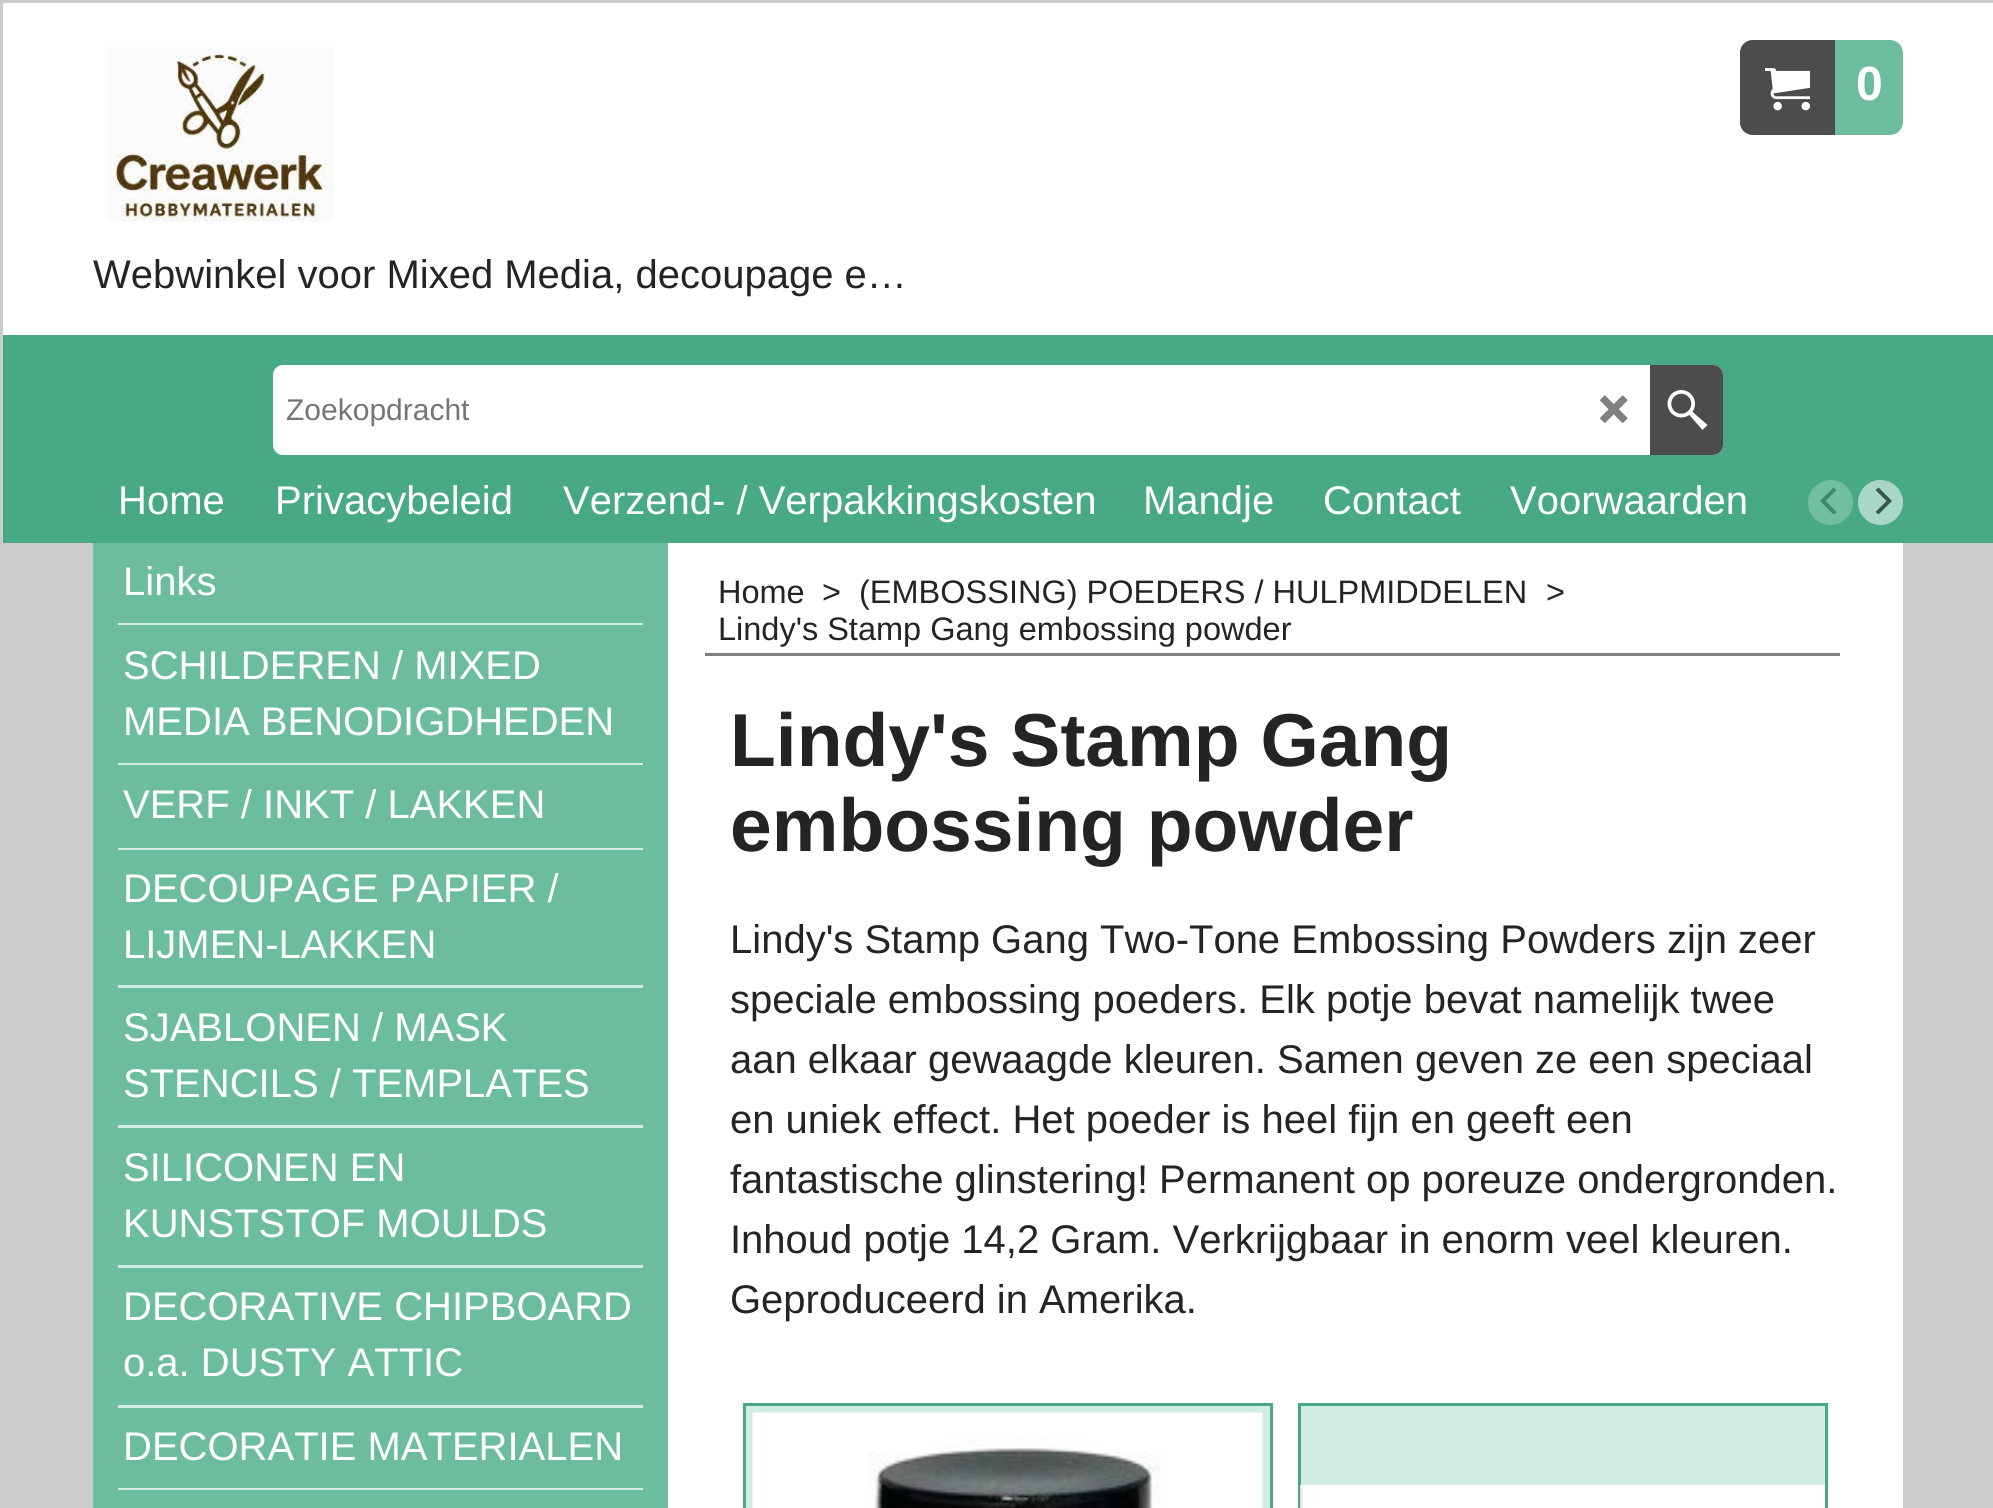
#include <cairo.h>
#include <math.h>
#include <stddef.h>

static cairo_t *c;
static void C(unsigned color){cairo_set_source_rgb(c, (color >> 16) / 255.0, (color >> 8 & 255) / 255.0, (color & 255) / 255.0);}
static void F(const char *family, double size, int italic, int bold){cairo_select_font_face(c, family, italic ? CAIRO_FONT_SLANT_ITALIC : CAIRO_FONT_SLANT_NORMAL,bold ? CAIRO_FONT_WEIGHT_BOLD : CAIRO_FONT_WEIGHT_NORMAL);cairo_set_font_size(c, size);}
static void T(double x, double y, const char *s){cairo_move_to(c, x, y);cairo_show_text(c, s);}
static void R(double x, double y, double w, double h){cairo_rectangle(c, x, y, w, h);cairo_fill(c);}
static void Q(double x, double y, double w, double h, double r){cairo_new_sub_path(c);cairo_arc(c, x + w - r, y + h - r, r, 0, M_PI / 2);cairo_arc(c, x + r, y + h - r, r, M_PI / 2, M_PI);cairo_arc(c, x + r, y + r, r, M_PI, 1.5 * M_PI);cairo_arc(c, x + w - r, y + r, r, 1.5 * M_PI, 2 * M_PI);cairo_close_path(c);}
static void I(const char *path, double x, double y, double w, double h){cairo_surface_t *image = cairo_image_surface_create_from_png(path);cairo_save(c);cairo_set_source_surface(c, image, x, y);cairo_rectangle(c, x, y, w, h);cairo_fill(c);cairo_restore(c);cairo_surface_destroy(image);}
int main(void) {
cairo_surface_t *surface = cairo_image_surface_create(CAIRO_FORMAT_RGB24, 1993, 1508);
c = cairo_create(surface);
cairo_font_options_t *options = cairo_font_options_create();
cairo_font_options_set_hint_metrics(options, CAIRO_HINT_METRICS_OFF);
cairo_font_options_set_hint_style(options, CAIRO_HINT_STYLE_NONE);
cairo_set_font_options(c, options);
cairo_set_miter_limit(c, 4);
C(0xcccccc);
cairo_paint(c);
C(0xffffff);
R(3,3,1990,332);
C(0x6cbd9e);
Q(1740,40,163,95,13);
cairo_fill(c);
C(0x4c4c4c);
cairo_new_path(c);
cairo_move_to(c,1753,41.5);
cairo_line_to(c,1833.5,41.5);
cairo_line_to(c,1833.5,133.5);
cairo_line_to(c,1753,133.5);
cairo_curve_to(c,1746.5,133.5,1741.5,128.5,1741.5,122);
cairo_line_to(c,1741.5,53);
cairo_curve_to(c,1741.5,46.5,1746.5,41.5,1753,41.5);
cairo_close_path(c);
cairo_fill_preserve(c);
cairo_set_line_width(c,3);
cairo_stroke(c);
I("1.png",1765,68,45,43);
F("Liberation Sans",48,0,1);
C(0xffffff);
T(1856,100,"0");
I("2.png",107,47,227,175);
F("Liberation Sans",40,0,0);
C(0x242424);
T(93,288,"Webwinkel voor Mixed Media, decoupage e…");
C(0x48aa85);
R(3,335,1990,208);
C(0xffffff);
Q(273,365,1450,90,10);
cairo_fill(c);
F("Liberation Sans",30,0,0);
C(0x757575);
T(286,420,"Zoekopdracht");
I("3.png",1600,395,28,28);
C(0x4c4c4c);
cairo_new_path(c);
cairo_move_to(c,1650,365);
cairo_line_to(c,1713,365);
cairo_curve_to(c,1718.5,365,1723,369.5,1723,375);
cairo_line_to(c,1723,445);
cairo_curve_to(c,1723,450.5,1718.5,455,1713,455);
cairo_line_to(c,1650,455);
cairo_close_path(c);
cairo_fill(c);
I("4.png",1667,390,41,40);
F("Liberation Sans",40,0,0);
C(0xffffff);
T(118,514,"Home");
T(275,514,"Privacybeleid");
T(563,514,"Verzend- / Verpakkingskosten");
T(1143,514,"Mandje");
T(1323,514,"Contact");
T(1510,514,"Voorwaarden");
C(0x71bea1);
cairo_new_path(c);
cairo_arc(c,1830.5,502.5,22.5,0,2 * M_PI);
cairo_fill(c);
C(0x42866c);
cairo_new_path(c);
cairo_move_to(c,1820,501);
cairo_line_to(c,1833.5,514.5);
cairo_line_to(c,1836.5,512);
cairo_line_to(c,1825.5,501);
cairo_line_to(c,1836.5,490);
cairo_line_to(c,1833.5,487.5);
cairo_close_path(c);
cairo_fill(c);
C(0xa8d7c5);
cairo_arc(c,1880.5,502.5,22.5,0,2 * M_PI);
cairo_fill(c);
C(0x39574c);
cairo_new_path(c);
cairo_move_to(c,1892,501);
cairo_line_to(c,1878.5,487.5);
cairo_line_to(c,1875.5,490);
cairo_line_to(c,1886.5,501);
cairo_line_to(c,1875.5,512);
cairo_line_to(c,1878.5,514.5);
cairo_close_path(c);
cairo_fill(c);
C(0xffffff);
R(668,543,1235,965);
C(0x6cbd9e);
R(93,543,575,965);
C(0xd2ede3);
R(118,623,525,2);
C(0xffffff);
T(123,595,"Links");
C(0xd2ede3);
R(118,763,525,2);
C(0xffffff);
T(123,679,"SCHILDEREN / MIXED");
T(123,735,"MEDIA BENODIGDHEDEN");
C(0xd2ede3);
R(118,848,525,2);
C(0xffffff);
T(123,818,"VERF / INKT / LAKKEN");
C(0xd2ede3);
R(118,985,525,3);
C(0xffffff);
T(123,902,"DECOUPAGE PAPIER /");
T(123,958,"LIJMEN-LAKKEN");
C(0xd2ede3);
R(118,1125,525,3);
C(0xffffff);
T(123,1041,"SJABLONEN / MASK");
T(123,1097,"STENCILS / TEMPLATES");
C(0xd2ede3);
R(118,1265,525,3);
C(0xffffff);
T(123,1181,"SILICONEN EN");
T(123,1237,"KUNSTSTOF MOULDS");
C(0xd2ede3);
R(118,1405,525,3);
C(0xffffff);
T(123,1320,"DECORATIVE CHIPBOARD");
T(123,1376,"o.a. DUSTY ATTIC");
C(0xd2ede3);
R(118,1488,525,2);
C(0xffffff);
T(123,1460,"DECORATIE MATERIALEN");
C(0x7f7f7f);
R(705,653,1135,3);
F("Liberation Sans",32.5,0,0);
C(0x242424);
T(718,603,"Home");
T(822,603,">");
T(859,603,"(EMBOSSING) POEDERS / HULPMIDDELEN");
T(1546,603,">");
T(718,640,"Lindy's Stamp Gang embossing powder");
F("Liberation Sans",75,0,1);
T(730,766,"Lindy's Stamp Gang");
T(730,851,"embossing powder");
F("Liberation Sans",40,0,0);
T(730,953,"Lindy's Stamp Gang Two-Tone Embossing Powders zijn zeer");
T(730,1013,"speciale embossing poeders. Elk potje bevat namelijk twee");
T(730,1073,"aan elkaar gewaagde kleuren. Samen geven ze een speciaal");
T(730,1133,"en uniek effect. Het poeder is heel fijn en geeft een");
T(730,1193,"fantastische glinstering! Permanent op poreuze ondergronden.");
T(730,1253,"Inhoud potje 14,2 Gram. Verkrijgbaar in enorm veel kleuren.");
T(730,1313,"Geproduceerd in Amerika.");
C(0xd2ede3);
cairo_rectangle(c,744.5,1404.5,527,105);
cairo_fill_preserve(c);
C(0x48aa85);
cairo_stroke(c);
I("5.png",752,1412,511,96);
C(0xd2ede3);
R(1301,1406,524,79);
cairo_rectangle(c,1299.5,1404.5,527,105);
C(0x48aa85);
cairo_stroke(c);
I("6.png",1300,1485,525,23);
cairo_surface_write_to_png(surface, "o.png");
cairo_font_options_destroy(options);
cairo_destroy(c);
cairo_surface_destroy(surface);
return 0;
}
